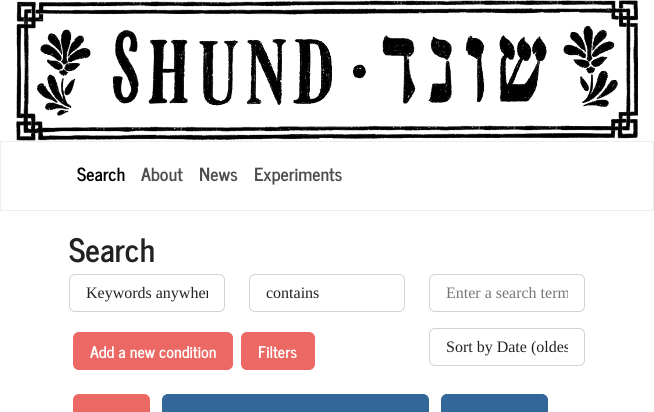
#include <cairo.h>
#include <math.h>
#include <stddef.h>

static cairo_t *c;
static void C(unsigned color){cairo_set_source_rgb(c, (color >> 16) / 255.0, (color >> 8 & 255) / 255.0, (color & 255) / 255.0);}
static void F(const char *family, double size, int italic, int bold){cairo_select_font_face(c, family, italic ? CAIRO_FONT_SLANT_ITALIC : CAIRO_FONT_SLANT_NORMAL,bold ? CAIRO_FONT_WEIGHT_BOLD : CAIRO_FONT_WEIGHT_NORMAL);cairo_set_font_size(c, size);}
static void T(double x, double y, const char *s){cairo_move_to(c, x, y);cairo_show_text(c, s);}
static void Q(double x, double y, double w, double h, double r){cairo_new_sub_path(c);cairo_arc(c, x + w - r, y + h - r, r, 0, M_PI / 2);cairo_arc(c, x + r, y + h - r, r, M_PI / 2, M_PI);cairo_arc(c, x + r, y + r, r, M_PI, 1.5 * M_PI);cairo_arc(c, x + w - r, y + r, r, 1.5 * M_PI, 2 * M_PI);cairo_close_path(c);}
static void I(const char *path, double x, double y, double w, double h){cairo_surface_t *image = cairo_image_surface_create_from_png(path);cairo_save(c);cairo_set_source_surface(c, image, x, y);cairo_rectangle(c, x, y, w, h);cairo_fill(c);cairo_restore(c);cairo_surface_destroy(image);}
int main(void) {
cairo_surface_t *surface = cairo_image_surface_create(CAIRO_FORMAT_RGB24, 654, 412);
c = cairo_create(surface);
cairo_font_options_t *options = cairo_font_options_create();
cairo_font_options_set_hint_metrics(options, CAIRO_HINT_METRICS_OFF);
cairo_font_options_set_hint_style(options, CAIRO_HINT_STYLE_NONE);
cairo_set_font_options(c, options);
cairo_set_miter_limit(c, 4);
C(0xffffff);
cairo_paint(c);
I("1.png",16,0,622,141);
cairo_rectangle(c,.5,141.5,653,69);
C(0xeeeeee);
cairo_set_line_width(c,1);
cairo_stroke(c);
F("News Cycle",18,0,1);
C(0x000000);
T(77,181,"Search");
C(0x4d4d4d);
T(141,181,"About");
T(199,181,"News");
T(254,181,"Experiments");
F("News Cycle",32,0,1);
C(0x222222);
T(69,262,"Search");
Q(69.5,274.5,155,37,5.5);
C(0xced4da);
cairo_stroke(c);
cairo_save(c);
cairo_rectangle(c,86,281,122,24);
cairo_clip(c);
F("Liberation Serif",16,0,0);
C(0x222222);
T(86,298,"Keywords anywher");
cairo_restore(c);
Q(249.5,274.5,155,37,5.5);
cairo_stroke(c);
F("Liberation Serif",16,0,0);
C(0x222222);
T(266,298,"contains");
Q(429.5,274.5,155,37,5.5);
C(0xced4da);
cairo_stroke(c);
cairo_save(c);
cairo_rectangle(c,446,284,122,18);
cairo_clip(c);
C(0x777777);
T(446,298,"Enter a search term");
cairo_restore(c);
C(0xeb6864);
Q(73.5,332.5,159,37,5.5);
cairo_fill_preserve(c);
cairo_stroke(c);
F("News Cycle",16,0,1);
C(0xffffff);
T(90,358,"Add a new condition");
C(0xeb6864);
Q(241.5,332.5,73,37,5.5);
cairo_fill_preserve(c);
cairo_stroke(c);
C(0xffffff);
T(258,358,"Filters");
Q(429.5,328.5,155,37,5.5);
C(0xced4da);
cairo_stroke(c);
cairo_save(c);
cairo_rectangle(c,446,335,122,24);
cairo_clip(c);
F("Liberation Serif",16,0,0);
C(0x222222);
T(446,352,"Sort by Date (oldes");
cairo_restore(c);
C(0xeb6864);
Q(73.5,394.5,76,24,5.5);
cairo_fill_preserve(c);
cairo_stroke(c);
C(0x336699);
Q(162.5,394.5,266,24,5.5);
cairo_fill_preserve(c);
cairo_stroke(c);
Q(441.5,394.5,106,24,5.5);
cairo_fill_preserve(c);
cairo_stroke(c);
cairo_surface_write_to_png(surface, "o.png");
cairo_font_options_destroy(options);
cairo_destroy(c);
cairo_surface_destroy(surface);
return 0;
}
